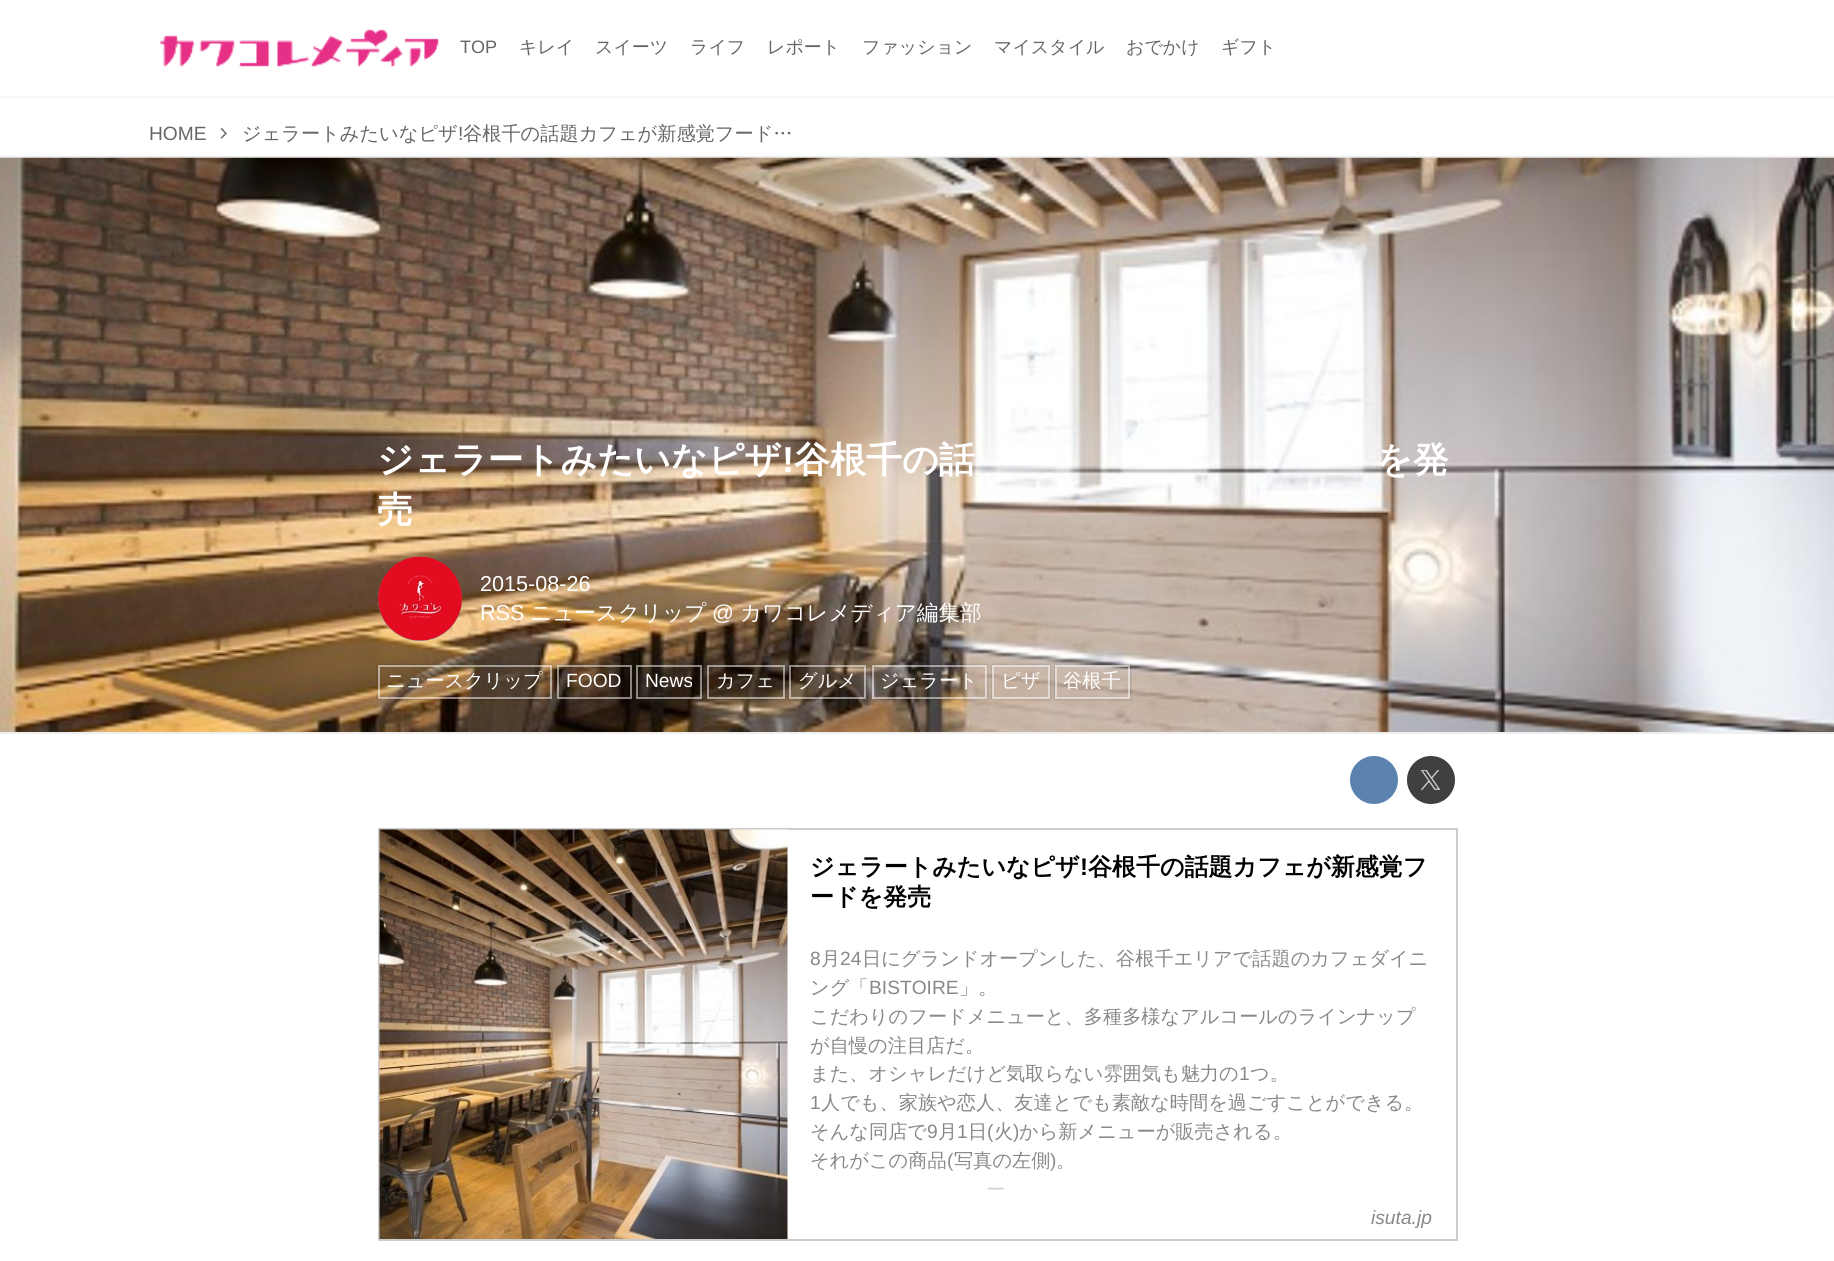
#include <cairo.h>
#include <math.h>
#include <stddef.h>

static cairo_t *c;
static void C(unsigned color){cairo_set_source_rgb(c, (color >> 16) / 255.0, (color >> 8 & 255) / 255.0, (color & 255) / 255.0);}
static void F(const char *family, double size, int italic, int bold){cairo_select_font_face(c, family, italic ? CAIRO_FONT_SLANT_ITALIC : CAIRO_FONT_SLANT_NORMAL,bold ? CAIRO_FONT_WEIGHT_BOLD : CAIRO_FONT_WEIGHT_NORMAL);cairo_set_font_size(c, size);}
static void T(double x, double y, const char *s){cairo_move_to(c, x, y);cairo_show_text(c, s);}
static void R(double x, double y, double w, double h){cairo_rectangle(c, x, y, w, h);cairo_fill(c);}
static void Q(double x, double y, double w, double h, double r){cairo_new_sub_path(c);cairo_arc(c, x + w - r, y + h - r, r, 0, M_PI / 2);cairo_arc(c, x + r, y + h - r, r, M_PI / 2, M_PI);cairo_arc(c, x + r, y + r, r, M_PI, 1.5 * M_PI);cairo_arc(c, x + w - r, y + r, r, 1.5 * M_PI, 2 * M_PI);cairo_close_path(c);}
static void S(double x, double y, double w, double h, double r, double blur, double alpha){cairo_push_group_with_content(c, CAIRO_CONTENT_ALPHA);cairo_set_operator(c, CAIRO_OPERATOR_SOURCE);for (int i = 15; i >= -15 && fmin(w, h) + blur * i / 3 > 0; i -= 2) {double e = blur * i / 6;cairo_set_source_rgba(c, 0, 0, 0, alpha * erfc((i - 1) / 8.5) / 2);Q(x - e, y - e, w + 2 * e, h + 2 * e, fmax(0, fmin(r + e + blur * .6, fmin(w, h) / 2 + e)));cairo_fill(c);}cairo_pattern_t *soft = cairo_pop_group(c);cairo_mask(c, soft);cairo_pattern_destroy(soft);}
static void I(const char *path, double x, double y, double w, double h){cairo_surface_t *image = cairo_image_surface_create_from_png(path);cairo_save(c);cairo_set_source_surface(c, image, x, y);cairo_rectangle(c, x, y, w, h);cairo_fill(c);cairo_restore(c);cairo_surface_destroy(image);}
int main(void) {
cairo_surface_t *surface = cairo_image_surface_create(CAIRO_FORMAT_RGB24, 1834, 1261);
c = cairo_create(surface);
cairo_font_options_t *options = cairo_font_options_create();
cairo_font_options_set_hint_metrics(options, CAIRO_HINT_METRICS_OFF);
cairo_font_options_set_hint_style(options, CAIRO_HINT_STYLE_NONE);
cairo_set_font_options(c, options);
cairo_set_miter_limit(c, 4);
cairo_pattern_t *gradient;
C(0xffffff);
cairo_paint(c);
I("1.png",160,29,279,38);
F("Liberation Sans",18,0,0);
C(0x666666);
T(460,53,"TOP");
F("WenQuanYi Zen Hei Medium",18,0,0);
T(519,53,"キレイ");
T(595,53,"スイーツ");
T(690,53,"ライフ");
T(767,53,"レポート");
T(862,53,"ファッション");
T(994,53,"マイスタイル");
T(1126,53,"おでかけ");
T(1221,53,"ギフト");
C(0xf8f8f8);
R(0,96,1834,3);
F("Liberation Sans",19.2,0,0);
C(0x666666);
T(149,140,"HOME");
I("2.png",220,128,7,11);
F("WenQuanYi Zen Hei Medium",19.2,0,0);
T(242,140,"ジェラートみたいなピザ");
F("Liberation Sans",19.2,0,0);
T(458,140,"!");
F("WenQuanYi Zen Hei Medium",19.2,0,0);
T(463,140,"谷根千の話題カフェが新感覚フード…");
C(0xeeeeee);
R(0,156,1834,2);
R(0,732,1834,2);
I("3.png",0,157,1834,575);
F("WenQuanYi Zen Hei",36,0,1);
C(0xffffff);
T(377,472,"ジェラートみたいなピザ");
F("Liberation Sans",36,0,1);
T(782,472,"!");
F("WenQuanYi Zen Hei",36,0,1);
T(794,472,"谷根千の話");
T(1376,472,"を発");
T(377,522,"売");
C(0x888888);
cairo_new_path(c);
cairo_arc(c,420,599,42,0,2 * M_PI);
cairo_fill(c);
I("4.png",378,556,84,85);
F("Liberation Sans",21.6,0,0);
C(0xffffff);
T(480,591,"2015-08-26");
T(480,620,"RSS");
F("WenQuanYi Zen Hei Medium",21.6,0,0);
T(530,620,"ニュースクリップ");
F("Liberation Sans",21.6,0,0);
T(712,620,"@");
F("WenQuanYi Zen Hei Medium",21.6,0,0);
T(740,620,"カワコレメディア編集部");
cairo_save(c);
cairo_set_fill_rule(c,CAIRO_FILL_RULE_EVEN_ODD);
cairo_new_path(c);
cairo_move_to(c,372,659);
cairo_line_to(c,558,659);
cairo_line_to(c,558,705);
cairo_line_to(c,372,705);
cairo_close_path(c);
cairo_move_to(c,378,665);
cairo_line_to(c,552,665);
cairo_line_to(c,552,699);
cairo_line_to(c,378,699);
cairo_close_path(c);
cairo_clip(c);
C(0x000000);
S(378,665,174,34,0,1.5,.25);
cairo_restore(c);
cairo_rectangle(c,379,666,172,32);
cairo_set_source_rgba(c,1,1,1,0.5);
cairo_stroke(c);
F("WenQuanYi Zen Hei Medium",19.2,0,0);
C(0xffffff);
T(386,687,"ニュースクリップ");
cairo_rectangle(c,558,666,73,32);
cairo_set_source_rgba(c,1,1,1,0.5);
cairo_stroke(c);
F("Liberation Sans",19.2,0,0);
C(0xffffff);
T(566,687,"FOOD");
cairo_rectangle(c,637,666,64,32);
cairo_set_source_rgba(c,1,1,1,0.5);
cairo_stroke(c);
C(0xffffff);
T(645,687,"News");
cairo_save(c);
cairo_set_fill_rule(c,CAIRO_FILL_RULE_EVEN_ODD);
cairo_new_path(c);
cairo_move_to(c,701,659);
cairo_line_to(c,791,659);
cairo_line_to(c,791,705);
cairo_line_to(c,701,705);
cairo_close_path(c);
cairo_move_to(c,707,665);
cairo_line_to(c,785,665);
cairo_line_to(c,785,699);
cairo_line_to(c,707,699);
cairo_close_path(c);
cairo_clip(c);
C(0x000000);
S(707,665,78,34,0,1.5,.25);
cairo_restore(c);
cairo_rectangle(c,708,666,76,32);
cairo_set_source_rgba(c,1,1,1,0.5);
cairo_stroke(c);
F("WenQuanYi Zen Hei Medium",19.2,0,0);
C(0xffffff);
T(716,687,"カフェ");
cairo_save(c);
cairo_set_fill_rule(c,CAIRO_FILL_RULE_EVEN_ODD);
cairo_new_path(c);
cairo_move_to(c,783,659);
cairo_line_to(c,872,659);
cairo_line_to(c,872,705);
cairo_line_to(c,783,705);
cairo_close_path(c);
cairo_move_to(c,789,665);
cairo_line_to(c,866,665);
cairo_line_to(c,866,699);
cairo_line_to(c,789,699);
cairo_close_path(c);
cairo_clip(c);
C(0x000000);
S(789,665,77,34,0,1.5,.25);
cairo_restore(c);
cairo_rectangle(c,790,666,75,32);
cairo_set_source_rgba(c,1,1,1,0.5);
cairo_stroke(c);
C(0xffffff);
T(798,687,"グルメ");
cairo_save(c);
cairo_set_fill_rule(c,CAIRO_FILL_RULE_EVEN_ODD);
cairo_new_path(c);
cairo_move_to(c,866,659);
cairo_line_to(c,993,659);
cairo_line_to(c,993,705);
cairo_line_to(c,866,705);
cairo_close_path(c);
cairo_move_to(c,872,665);
cairo_line_to(c,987,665);
cairo_line_to(c,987,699);
cairo_line_to(c,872,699);
cairo_close_path(c);
cairo_clip(c);
C(0x000000);
S(872,665,115,34,0,1.5,.25);
cairo_restore(c);
cairo_rectangle(c,873,666,113,32);
cairo_set_source_rgba(c,1,1,1,0.5);
cairo_stroke(c);
C(0xffffff);
T(880,687,"ジェラート");
cairo_save(c);
cairo_set_fill_rule(c,CAIRO_FILL_RULE_EVEN_ODD);
cairo_new_path(c);
cairo_move_to(c,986,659);
cairo_line_to(c,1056,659);
cairo_line_to(c,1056,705);
cairo_line_to(c,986,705);
cairo_close_path(c);
cairo_move_to(c,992,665);
cairo_line_to(c,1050,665);
cairo_line_to(c,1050,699);
cairo_line_to(c,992,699);
cairo_close_path(c);
cairo_clip(c);
C(0x000000);
S(992,665,58,34,0,1.5,.25);
cairo_restore(c);
cairo_rectangle(c,993,666,56,32);
cairo_set_source_rgba(c,1,1,1,0.5);
cairo_stroke(c);
C(0xffffff);
T(1001,687,"ピザ");
cairo_save(c);
cairo_set_fill_rule(c,CAIRO_FILL_RULE_EVEN_ODD);
cairo_new_path(c);
cairo_move_to(c,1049,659);
cairo_line_to(c,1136,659);
cairo_line_to(c,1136,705);
cairo_line_to(c,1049,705);
cairo_close_path(c);
cairo_move_to(c,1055,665);
cairo_line_to(c,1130,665);
cairo_line_to(c,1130,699);
cairo_line_to(c,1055,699);
cairo_close_path(c);
cairo_clip(c);
C(0x000000);
S(1055,665,75,34,0,1.5,.25);
cairo_restore(c);
cairo_rectangle(c,1056,666,73,32);
cairo_set_source_rgba(c,1,1,1,0.5);
cairo_stroke(c);
C(0xffffff);
T(1063,687,"谷根千");
C(0x5c83b0);
cairo_new_path(c);
cairo_arc(c,1374,780,24,0,2 * M_PI);
cairo_fill(c);
C(0x404040);
cairo_arc(c,1431,780,24,0,2 * M_PI);
cairo_fill(c);
I("5.png",1421,770,20,20);
cairo_rectangle(c,379,829,1078,411);
C(0xcccccc);
cairo_stroke(c);
I("6.png",379,829,409,410);
F("WenQuanYi Zen Hei",24,0,1);
C(0x000000);
T(810,875,"ジェラートみたいなピザ");
F("Liberation Sans",24,0,1);
T(1080,875,"!");
F("WenQuanYi Zen Hei",24,0,1);
T(1088,875,"谷根千の話題カフェが新感覚フ");
T(810,905,"ードを発売");
F("Liberation Sans",19.2,0,0);
C(0x888888);
T(810,965,"8");
F("WenQuanYi Zen Hei Medium",19.2,0,0);
T(821,965,"月");
F("Liberation Sans",19.2,0,0);
T(840,965,"24");
F("WenQuanYi Zen Hei Medium",19.2,0,0);
T(862,965,"日にグランドオープンした、谷根千エリアで話題のカフェダイニ");
T(810,994,"ング「");
F("Liberation Sans",19.2,0,0);
T(869,994,"BISTOIRE");
F("WenQuanYi Zen Hei Medium",19.2,0,0);
T(959,994,"」。");
T(810,1023,"こだわりのフードメニューと、多種多様なアルコールのラインナップ");
T(810,1052,"が自慢の注目店だ。");
T(810,1080,"また、オシャレだけど気取らない雰囲気も魅力の");
F("Liberation Sans",19.2,0,0);
T(1239,1080,"1");
F("WenQuanYi Zen Hei Medium",19.2,0,0);
T(1250,1080,"つ。");
F("Liberation Sans",19.2,0,0);
T(810,1109,"1");
F("WenQuanYi Zen Hei Medium",19.2,0,0);
T(821,1109,"人でも、家族や恋人、友達とでも素敵な時間を過ごすことができる。");
T(810,1138,"そんな同店で");
F("Liberation Sans",19.2,0,0);
T(927,1138,"9");
F("WenQuanYi Zen Hei Medium",19.2,0,0);
T(938,1138,"月");
F("Liberation Sans",19.2,0,0);
T(957,1138,"1");
F("WenQuanYi Zen Hei Medium",19.2,0,0);
T(968,1138,"日");
F("Liberation Sans",19.2,0,0);
T(987,1138,"(");
F("WenQuanYi Zen Hei Medium",19.2,0,0);
T(994,1138,"火");
F("Liberation Sans",19.2,0,0);
T(1013,1138,")");
F("WenQuanYi Zen Hei Medium",19.2,0,0);
T(1019,1138,"から新メニューが販売される。");
T(810,1167,"それがこの商品");
F("Liberation Sans",19.2,0,0);
T(947,1167,"(");
F("WenQuanYi Zen Hei Medium",19.2,0,0);
T(954,1167,"写真の左側");
F("Liberation Sans",19.2,0,0);
T(1050,1167,")");
F("WenQuanYi Zen Hei Medium",19.2,0,0);
T(1056,1167,"。");
T(986,1196,"ー");
gradient = cairo_pattern_create_linear(1122,1164,1122,1239);
cairo_pattern_add_color_stop_rgba(gradient,0,1,1,1,0);
cairo_pattern_add_color_stop_rgba(gradient,.5,1,1,1,1);
cairo_set_source(c,gradient);
cairo_pattern_destroy(gradient);
R(818,1165,245,25);
F("Liberation Sans",19.2,1,0);
C(0x888888);
T(1371,1224,"isuta.jp");
cairo_surface_write_to_png(surface, "o.png");
cairo_font_options_destroy(options);
cairo_destroy(c);
cairo_surface_destroy(surface);
return 0;
}
